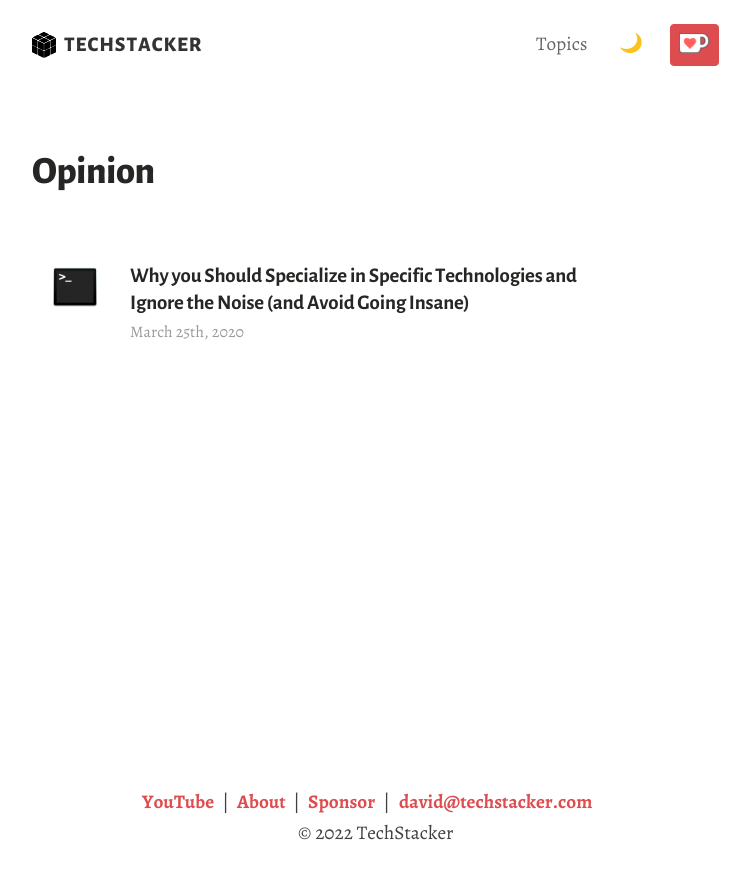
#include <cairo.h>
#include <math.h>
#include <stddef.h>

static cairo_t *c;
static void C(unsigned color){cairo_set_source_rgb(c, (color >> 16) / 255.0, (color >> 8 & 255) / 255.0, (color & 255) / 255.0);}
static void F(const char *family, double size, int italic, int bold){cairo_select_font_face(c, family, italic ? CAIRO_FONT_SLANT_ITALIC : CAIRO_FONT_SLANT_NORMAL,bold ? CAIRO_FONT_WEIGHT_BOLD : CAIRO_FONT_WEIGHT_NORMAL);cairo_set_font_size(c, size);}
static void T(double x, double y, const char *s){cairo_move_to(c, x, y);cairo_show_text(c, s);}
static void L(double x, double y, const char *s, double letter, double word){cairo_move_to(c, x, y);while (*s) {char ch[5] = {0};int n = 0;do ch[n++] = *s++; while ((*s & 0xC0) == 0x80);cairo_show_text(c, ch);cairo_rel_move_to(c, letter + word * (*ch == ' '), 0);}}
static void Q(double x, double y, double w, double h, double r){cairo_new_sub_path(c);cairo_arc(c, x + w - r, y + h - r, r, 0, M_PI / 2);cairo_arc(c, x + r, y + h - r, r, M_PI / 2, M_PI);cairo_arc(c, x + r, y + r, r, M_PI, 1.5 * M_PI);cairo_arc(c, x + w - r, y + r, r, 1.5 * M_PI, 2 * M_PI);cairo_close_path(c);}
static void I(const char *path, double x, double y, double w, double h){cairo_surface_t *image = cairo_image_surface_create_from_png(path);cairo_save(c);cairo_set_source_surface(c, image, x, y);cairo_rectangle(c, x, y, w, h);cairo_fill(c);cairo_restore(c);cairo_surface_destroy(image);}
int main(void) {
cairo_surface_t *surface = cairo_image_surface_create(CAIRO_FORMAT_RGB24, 751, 882);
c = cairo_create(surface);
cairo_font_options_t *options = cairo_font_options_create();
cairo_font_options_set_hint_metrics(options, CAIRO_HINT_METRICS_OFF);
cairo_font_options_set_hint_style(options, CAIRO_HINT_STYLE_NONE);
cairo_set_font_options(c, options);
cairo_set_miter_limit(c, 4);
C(0xffffff);
cairo_paint(c);
I("1.png",32,32,24,26);
F("Alegreya Sans ExtraBold",20.8,0,0);
C(0x333333);
L(64,51,"TECHSTACKER",1,0);
F("Alegreya",19.25,0,0);
C(0x666666);
T(536,50,"Topics");
I("2.png",620,33,22,20);
C(0xdd4c4f);
Q(670,24,49,42,4);
cairo_fill(c);
I("3.png",679,33,31,20);
F("Alegreya Sans ExtraBold",38.5,0,0);
C(0x282624);
L(32,183,"Opinion",-.5,0);
I("4.png",53,267,44,40);
F("Alegreya Sans",20.8,0,1);
L(130,282,"Why you Should Specialize in Specific Technologies and",-.2,0);
L(130,309,"Ignore the Noise (and Avoid Going Insane)",-.2,0);
F("Alegreya",16,0,0);
C(0x999999);
T(130,337,"March 25th, 2020");
F("Alegreya",19.25,0,1);
C(0xdd4c4f);
T(142,808,"YouTube");
F("Alegreya",19.25,0,0);
C(0x404040);
T(222,808,"|");
F("Alegreya",19.25,0,1);
C(0xdd4c4f);
T(237,808,"About");
F("Alegreya",19.25,0,0);
C(0x404040);
T(293,808,"|");
F("Alegreya",19.25,0,1);
C(0xdd4c4f);
T(308,808,"Sponsor");
F("Alegreya",19.25,0,0);
C(0x404040);
T(383,808,"|");
F("Alegreya",19.25,0,1);
C(0xdd4c4f);
T(399,808,"david@techstacker.com");
F("Alegreya",19.25,0,0);
C(0x404040);
T(298,839,"© 2022 TechStacker");
cairo_surface_write_to_png(surface, "o.png");
cairo_font_options_destroy(options);
cairo_destroy(c);
cairo_surface_destroy(surface);
return 0;
}
